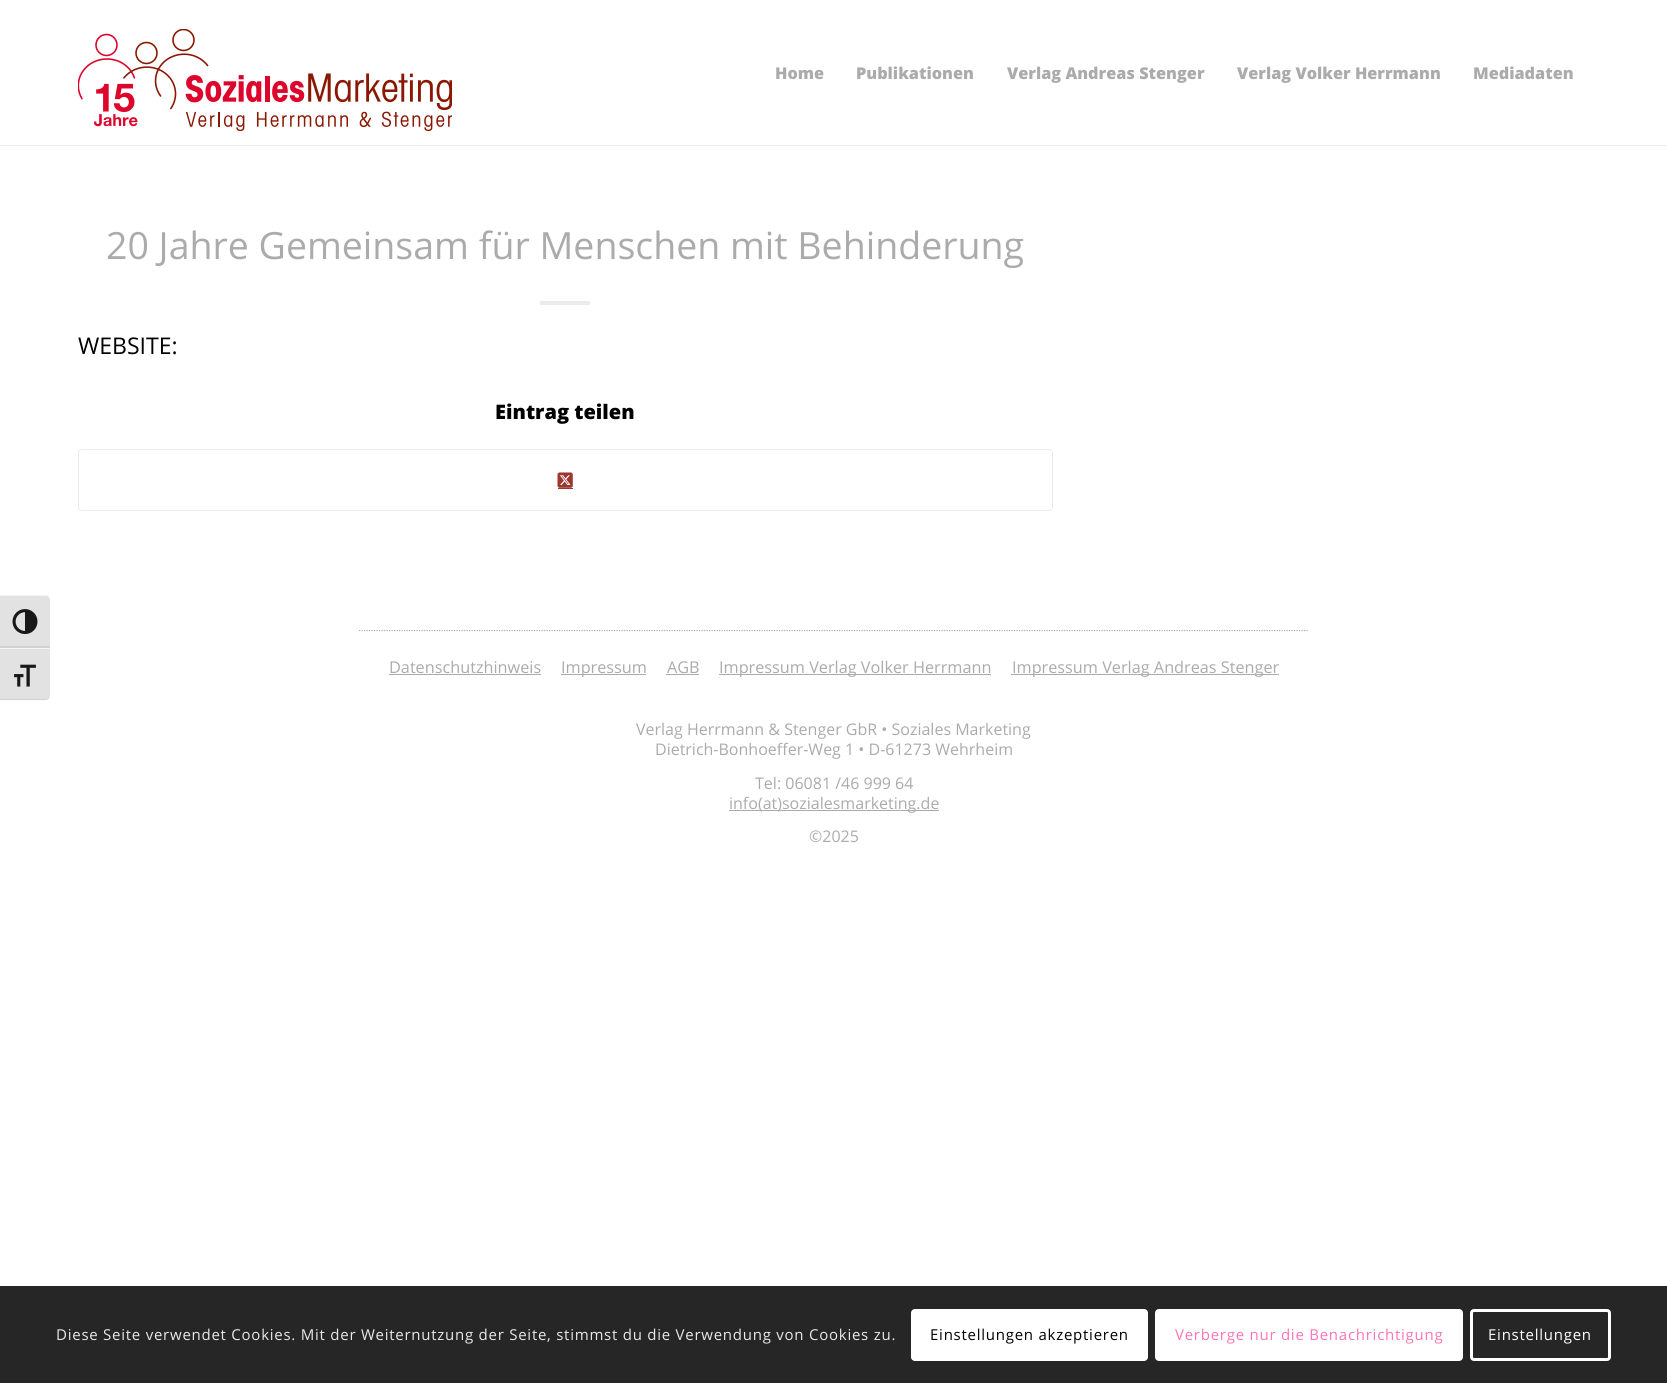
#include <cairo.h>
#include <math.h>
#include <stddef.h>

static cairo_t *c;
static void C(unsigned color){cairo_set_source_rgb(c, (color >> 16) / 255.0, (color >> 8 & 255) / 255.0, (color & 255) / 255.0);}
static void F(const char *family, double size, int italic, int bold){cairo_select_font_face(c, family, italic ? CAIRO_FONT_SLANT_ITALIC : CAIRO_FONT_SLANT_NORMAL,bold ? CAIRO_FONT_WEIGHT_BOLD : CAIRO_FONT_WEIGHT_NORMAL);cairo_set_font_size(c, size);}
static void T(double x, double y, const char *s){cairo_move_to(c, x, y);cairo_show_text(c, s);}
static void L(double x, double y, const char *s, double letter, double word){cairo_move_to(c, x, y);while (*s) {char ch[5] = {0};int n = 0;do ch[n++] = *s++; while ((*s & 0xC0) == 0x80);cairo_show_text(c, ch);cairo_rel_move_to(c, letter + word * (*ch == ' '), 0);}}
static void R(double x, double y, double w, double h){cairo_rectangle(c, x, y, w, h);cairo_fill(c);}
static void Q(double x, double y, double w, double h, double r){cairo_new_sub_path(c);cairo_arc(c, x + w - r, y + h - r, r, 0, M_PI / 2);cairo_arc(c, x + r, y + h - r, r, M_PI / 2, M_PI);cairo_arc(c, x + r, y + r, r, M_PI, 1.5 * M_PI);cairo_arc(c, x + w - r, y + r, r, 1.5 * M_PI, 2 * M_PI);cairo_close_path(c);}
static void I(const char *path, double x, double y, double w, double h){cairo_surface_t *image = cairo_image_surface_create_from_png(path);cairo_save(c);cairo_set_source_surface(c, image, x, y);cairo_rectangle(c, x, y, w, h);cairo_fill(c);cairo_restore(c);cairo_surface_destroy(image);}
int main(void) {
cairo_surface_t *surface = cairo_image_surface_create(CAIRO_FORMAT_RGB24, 1667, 1383);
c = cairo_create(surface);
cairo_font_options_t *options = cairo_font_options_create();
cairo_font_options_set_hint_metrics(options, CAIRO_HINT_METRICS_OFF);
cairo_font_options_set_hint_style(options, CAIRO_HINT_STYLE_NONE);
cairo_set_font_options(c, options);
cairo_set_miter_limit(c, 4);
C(0xffffff);
cairo_paint(c);
C(0xe2e2e2);
cairo_new_path(c);
cairo_move_to(c,0,595);
cairo_line_to(c,45,595);
cairo_curve_to(c,48,595,50,597,50,600);
cairo_line_to(c,50,648);
cairo_line_to(c,0,648);
cairo_close_path(c);
cairo_fill(c);
C(0xf5f5f5);
cairo_new_path(c);
cairo_move_to(c,0,595);
cairo_line_to(c,0,596);
cairo_line_to(c,45,596);
cairo_curve_to(c,48,596,50,598,50,600);
cairo_curve_to(c,50,597,48,595,45,595);
cairo_close_path(c);
cairo_fill(c);
C(0xd2d2d2);
R(0,646,50,2);
I("1.png",12,609,26,25);
C(0xe2e2e2);
cairo_new_path(c);
cairo_move_to(c,0,648);
cairo_line_to(c,50,648);
cairo_line_to(c,50,695);
cairo_curve_to(c,50,698,48,700,45,700);
cairo_line_to(c,0,700);
cairo_close_path(c);
cairo_fill(c);
C(0xf5f5f5);
R(0,648,50,1);
C(0xd2d2d2);
cairo_new_path(c);
cairo_move_to(c,0,699);
cairo_line_to(c,0,700);
cairo_line_to(c,45,700);
cairo_curve_to(c,48,700,50,698,50,695);
cairo_curve_to(c,50,697,48,699,45,699);
cairo_close_path(c);
cairo_fill(c);
I("2.png",14,664,22,23);
C(0xebebeb);
R(0,145,1667,1);
I("3.png",78,29,374,102);
F("Open Sans ExtraBold",16.25,0,0);
C(0xababab);
T(775,79,"Home");
T(856,79,"Publikationen");
T(1007,79,"Verlag Andreas Stenger");
T(1237,79,"Verlag Volker Herrmann");
T(1473,79,"Mediadaten");
F("Open Sans",37.5,0,0);
T(106,259,"20 Jahre Gemeinsam für Menschen mit Behinderung");
C(0xebebeb);
R(540,301,50,4);
F("Open Sans",23,0,0);
C(0x000000);
T(78,354,"WEBSITE:");
F("Open Sans ExtraBold",20,0,0);
T(495,419,"Eintrag teilen");
Q(78.5,449.5,974,61,3.5);
C(0xebebeb);
cairo_set_line_width(c,1);
cairo_stroke(c);
I("4.png",557,472,16,16);
C(0x9e372f);
R(558,488,15,1);
cairo_save(c);
cairo_rectangle(c,78,630,1512,75);
cairo_clip(c);
cairo_new_path(c);
cairo_move_to(c,359,630.5);
cairo_line_to(c,1309,630.5);
C(0xababab);
cairo_set_line_width(c,1.2);
cairo_set_dash(c,(double[]){1.25,1.25},2,0);
cairo_stroke(c);
cairo_restore(c);
F("Open Sans",16.25,0,0);
C(0xababab);
T(389,673,"Datenschutzhinweis");
R(389,674,152,1);
R(561,674,85,1);
T(561,673,"Impressum");
T(667,673,"AGB");
R(666,674,33,1);
R(719,674,272,1);
T(719,673,"Impressum Verlag Volker Herrmann");
R(1011,674,268,1);
T(1012,673,"Impressum Verlag Andreas Stenger");
F("Open Sans",16,0,0);
T(636,735,"Verlag Herrmann & Stenger GbR • Soziales Marketing");
T(655,755,"Dietrich-Bonhoeffer-Weg 1 • D-61273 Wehrheim");
T(755,789,"Tel: 06081 /46 999 64");
R(729,810,210,1);
T(729,809,"info(at)sozialesmarketing.de");
T(809,842,"©2025");
C(0x262626);
R(0,1286,1667,97);
F("Open Sans",15,0,0);
C(0xe9e9e9);
L(56,1340,"Diese Seite verwendet Cookies. Mit der Weiternutzung der Seite, stimmst du die Verwendung von Cookies zu.",.75,0);
C(0xffffff);
Q(911,1309,237,52,4);
cairo_fill(c);
C(0x000000);
L(930,1340,"Einstellungen akzeptieren",.75,0);
C(0xffffff);
Q(1156.5,1310.5,305,49,2.5);
cairo_fill_preserve(c);
cairo_set_line_width(c,3);
cairo_stroke(c);
C(0xff75b5);
L(1175,1340,"Verberge nur die Benachrichtigung",.75,0);
Q(1471.5,1310.5,138,49,2.5);
C(0xffffff);
cairo_stroke(c);
L(1488,1340,"Einstellungen",.75,0);
cairo_surface_write_to_png(surface, "o.png");
cairo_font_options_destroy(options);
cairo_destroy(c);
cairo_surface_destroy(surface);
return 0;
}
